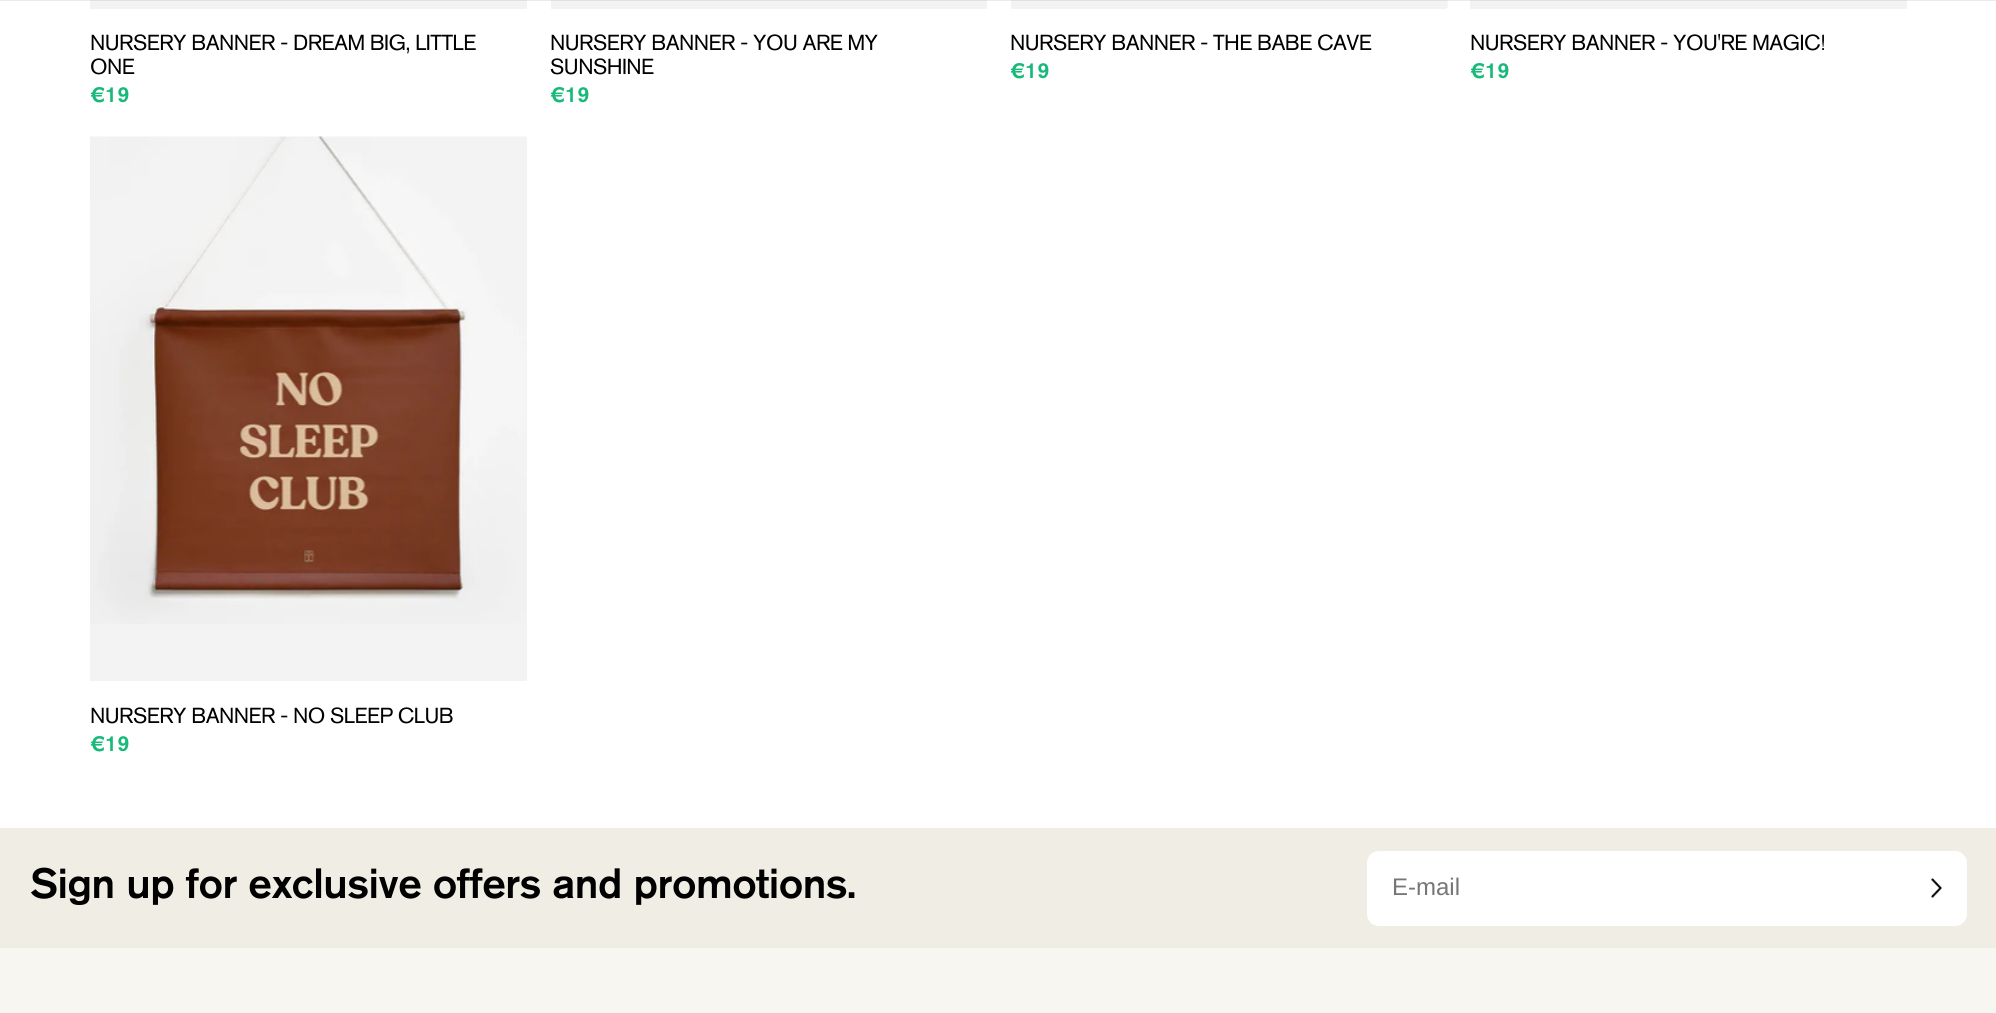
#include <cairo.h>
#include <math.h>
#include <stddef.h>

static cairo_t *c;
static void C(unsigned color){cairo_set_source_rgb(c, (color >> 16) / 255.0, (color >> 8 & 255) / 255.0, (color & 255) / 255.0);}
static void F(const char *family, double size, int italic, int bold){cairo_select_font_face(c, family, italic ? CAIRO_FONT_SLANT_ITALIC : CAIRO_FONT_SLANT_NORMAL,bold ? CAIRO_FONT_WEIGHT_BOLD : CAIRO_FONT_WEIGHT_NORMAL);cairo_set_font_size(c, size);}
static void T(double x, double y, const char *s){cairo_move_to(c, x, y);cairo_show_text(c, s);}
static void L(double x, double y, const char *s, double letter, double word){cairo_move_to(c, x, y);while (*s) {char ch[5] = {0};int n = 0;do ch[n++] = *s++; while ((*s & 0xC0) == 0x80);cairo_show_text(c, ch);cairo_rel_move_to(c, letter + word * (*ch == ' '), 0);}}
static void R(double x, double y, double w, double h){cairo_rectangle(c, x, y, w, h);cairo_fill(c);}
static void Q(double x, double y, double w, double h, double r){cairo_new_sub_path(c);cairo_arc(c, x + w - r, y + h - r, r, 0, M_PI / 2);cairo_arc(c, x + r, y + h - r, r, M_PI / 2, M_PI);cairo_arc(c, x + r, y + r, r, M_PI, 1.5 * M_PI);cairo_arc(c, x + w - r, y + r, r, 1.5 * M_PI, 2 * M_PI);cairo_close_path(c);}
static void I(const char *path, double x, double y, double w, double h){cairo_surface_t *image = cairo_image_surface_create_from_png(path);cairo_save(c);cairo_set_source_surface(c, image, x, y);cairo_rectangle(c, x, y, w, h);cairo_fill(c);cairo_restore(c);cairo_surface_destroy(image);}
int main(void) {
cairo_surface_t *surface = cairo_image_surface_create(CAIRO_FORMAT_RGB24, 1996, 1013);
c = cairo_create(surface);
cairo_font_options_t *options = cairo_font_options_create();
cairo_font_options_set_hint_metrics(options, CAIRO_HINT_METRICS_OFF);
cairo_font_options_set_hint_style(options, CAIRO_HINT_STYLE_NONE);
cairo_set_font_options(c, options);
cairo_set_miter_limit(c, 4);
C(0xffffff);
cairo_paint(c);
C(0xf3f3f3);
R(90,0,437,9);
R(551,0,436,9);
R(1011,0,435,9);
I("1.png",1446,0,2,8);
R(1470,0,437,9);
cairo_set_source_rgba(c,0,0,0,0.08);
R(0,0,1996,1);
F("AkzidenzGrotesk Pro",21.6,0,0);
C(0x000000);
L(90,50,"NURSERY BANNER - DREAM BIG, LITTLE",-.55,0);
L(90,74,"ONE",-.55,0);
F("AkzidenzGrotesk Pro Medium",21.6,0,0);
C(0x18b97b);
T(90,102,"€19");
F("AkzidenzGrotesk Pro",21.6,0,0);
C(0x000000);
L(550,50,"NURSERY BANNER - YOU ARE MY",-.55,0);
L(550,74,"SUNSHINE",-.55,0);
F("AkzidenzGrotesk Pro Medium",21.6,0,0);
C(0x18b97b);
T(550,102,"€19");
F("AkzidenzGrotesk Pro",21.6,0,0);
C(0x000000);
L(1010,50,"NURSERY BANNER - THE BABE CAVE",-.55,0);
F("AkzidenzGrotesk Pro Medium",21.6,0,0);
C(0x18b97b);
T(1010,78,"€19");
F("AkzidenzGrotesk Pro",21.6,0,0);
C(0x000000);
L(1470,50,"NURSERY BANNER - YOU'RE MAGIC!",-.55,0);
F("AkzidenzGrotesk Pro Medium",21.6,0,0);
C(0x18b97b);
T(1470,78,"€19");
C(0xf3f3f3);
R(90,137,437,544);
I("2.png",90,136,436,488);
F("AkzidenzGrotesk Pro",21.6,0,0);
C(0x000000);
L(90,723,"NURSERY BANNER - NO SLEEP CLUB",-.55,0);
F("AkzidenzGrotesk Pro Medium",21.6,0,0);
C(0x18b97b);
T(90,751,"€19");
C(0xefede4);
R(0,828,1996,120);
F("AkzidenzGrotesk Pro Medium",42,0,0);
C(0x000000);
L(30,898,"Sign up for exclusive offers and promotions.",-.5,0);
C(0xffffff);
Q(1367,851,600,75,12);
cairo_fill(c);
F("Liberation Sans",24,0,0);
C(0x767676);
T(1392,895,"E-mail");
I("3.png",1931,878,11,20);
C(0xf8f6f1);
R(0,948,1996,65);
cairo_surface_write_to_png(surface, "o.png");
cairo_font_options_destroy(options);
cairo_destroy(c);
cairo_surface_destroy(surface);
return 0;
}
